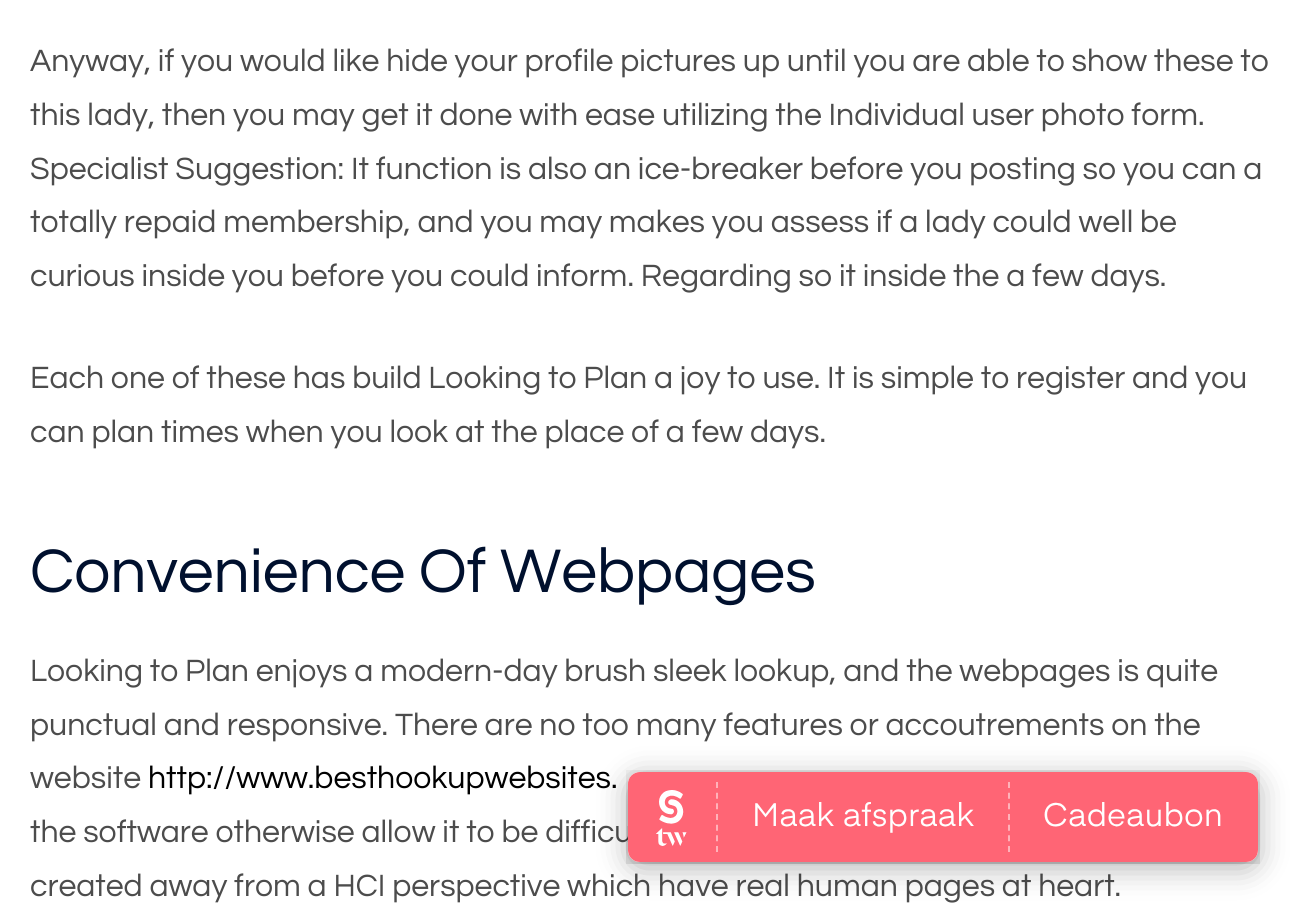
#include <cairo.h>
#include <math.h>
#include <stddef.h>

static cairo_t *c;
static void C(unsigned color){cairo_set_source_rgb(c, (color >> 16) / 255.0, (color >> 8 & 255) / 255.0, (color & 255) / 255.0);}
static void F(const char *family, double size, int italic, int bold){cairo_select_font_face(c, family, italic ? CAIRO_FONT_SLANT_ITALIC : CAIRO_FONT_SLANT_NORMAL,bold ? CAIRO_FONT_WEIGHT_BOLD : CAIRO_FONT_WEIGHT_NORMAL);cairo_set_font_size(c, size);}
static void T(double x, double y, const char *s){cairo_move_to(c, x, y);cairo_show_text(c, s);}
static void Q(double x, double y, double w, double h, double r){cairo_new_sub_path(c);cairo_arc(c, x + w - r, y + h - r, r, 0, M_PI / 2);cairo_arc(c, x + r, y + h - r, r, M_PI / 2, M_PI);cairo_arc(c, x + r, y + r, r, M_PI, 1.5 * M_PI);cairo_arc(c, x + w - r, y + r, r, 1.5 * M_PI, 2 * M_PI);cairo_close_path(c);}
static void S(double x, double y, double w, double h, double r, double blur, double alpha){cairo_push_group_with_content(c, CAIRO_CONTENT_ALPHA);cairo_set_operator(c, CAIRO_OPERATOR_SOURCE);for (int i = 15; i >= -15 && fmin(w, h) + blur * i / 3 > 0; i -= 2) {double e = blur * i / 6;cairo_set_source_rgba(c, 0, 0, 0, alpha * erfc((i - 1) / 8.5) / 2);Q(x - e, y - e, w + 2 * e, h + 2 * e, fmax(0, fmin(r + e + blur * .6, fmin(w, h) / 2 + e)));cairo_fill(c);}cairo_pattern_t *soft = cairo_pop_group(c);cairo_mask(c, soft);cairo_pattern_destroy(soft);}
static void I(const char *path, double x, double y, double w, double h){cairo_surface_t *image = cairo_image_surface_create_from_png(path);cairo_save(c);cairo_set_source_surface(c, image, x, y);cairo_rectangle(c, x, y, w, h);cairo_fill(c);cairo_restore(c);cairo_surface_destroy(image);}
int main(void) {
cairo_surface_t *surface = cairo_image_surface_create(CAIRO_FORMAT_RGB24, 1302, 906);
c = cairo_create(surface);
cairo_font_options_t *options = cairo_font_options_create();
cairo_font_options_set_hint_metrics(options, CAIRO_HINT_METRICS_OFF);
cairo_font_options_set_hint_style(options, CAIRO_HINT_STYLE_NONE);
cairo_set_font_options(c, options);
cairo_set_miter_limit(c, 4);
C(0xffffff);
cairo_paint(c);
F("Questrial",32,0,0);
C(0x4c4c4c);
T(30,71,"Anyway, if you would like hide your profile pictures up until you are able to show these to");
T(30,125,"this lady, then you may get it done with ease utilizing the Individual user photo form.");
T(30,179,"Specialist Suggestion: It function is also an ice-breaker before you posting so you can a");
T(30,232,"totally repaid membership, and you may makes you assess if a lady could well be");
T(30,286,"curious inside you before you could inform. Regarding so it inside the a few days.");
T(30,388,"Each one of these has build Looking to Plan a joy to use. It is simple to register and you");
T(30,442,"can plan times when you look at the place of a few days.");
F("Questrial",64,0,0);
C(0x00102e);
T(30,592,"Convenience Of Webpages");
F("Questrial",32,0,0);
C(0x4c4c4c);
T(30,681,"Looking to Plan enjoys a modern-day brush sleek lookup, and the webpages is quite");
T(30,735,"punctual and responsive. There are no too many features or accoutrements on the");
T(30,788,"website");
C(0x000000);
T(148,788,"http://www.besthookupwebsites.");
C(0x4c4c4c);
T(30,842,"the software otherwise allow it to be difficu");
T(30,896,"created away from a HCI perspective which have real human pages at heart.");
C(0x000000);
S(628,778,630,90,12,15,.3);
I("1.png",626,770,634,94);
I("2.png",1008,772,250,90);
cairo_surface_write_to_png(surface, "o.png");
cairo_font_options_destroy(options);
cairo_destroy(c);
cairo_surface_destroy(surface);
return 0;
}
